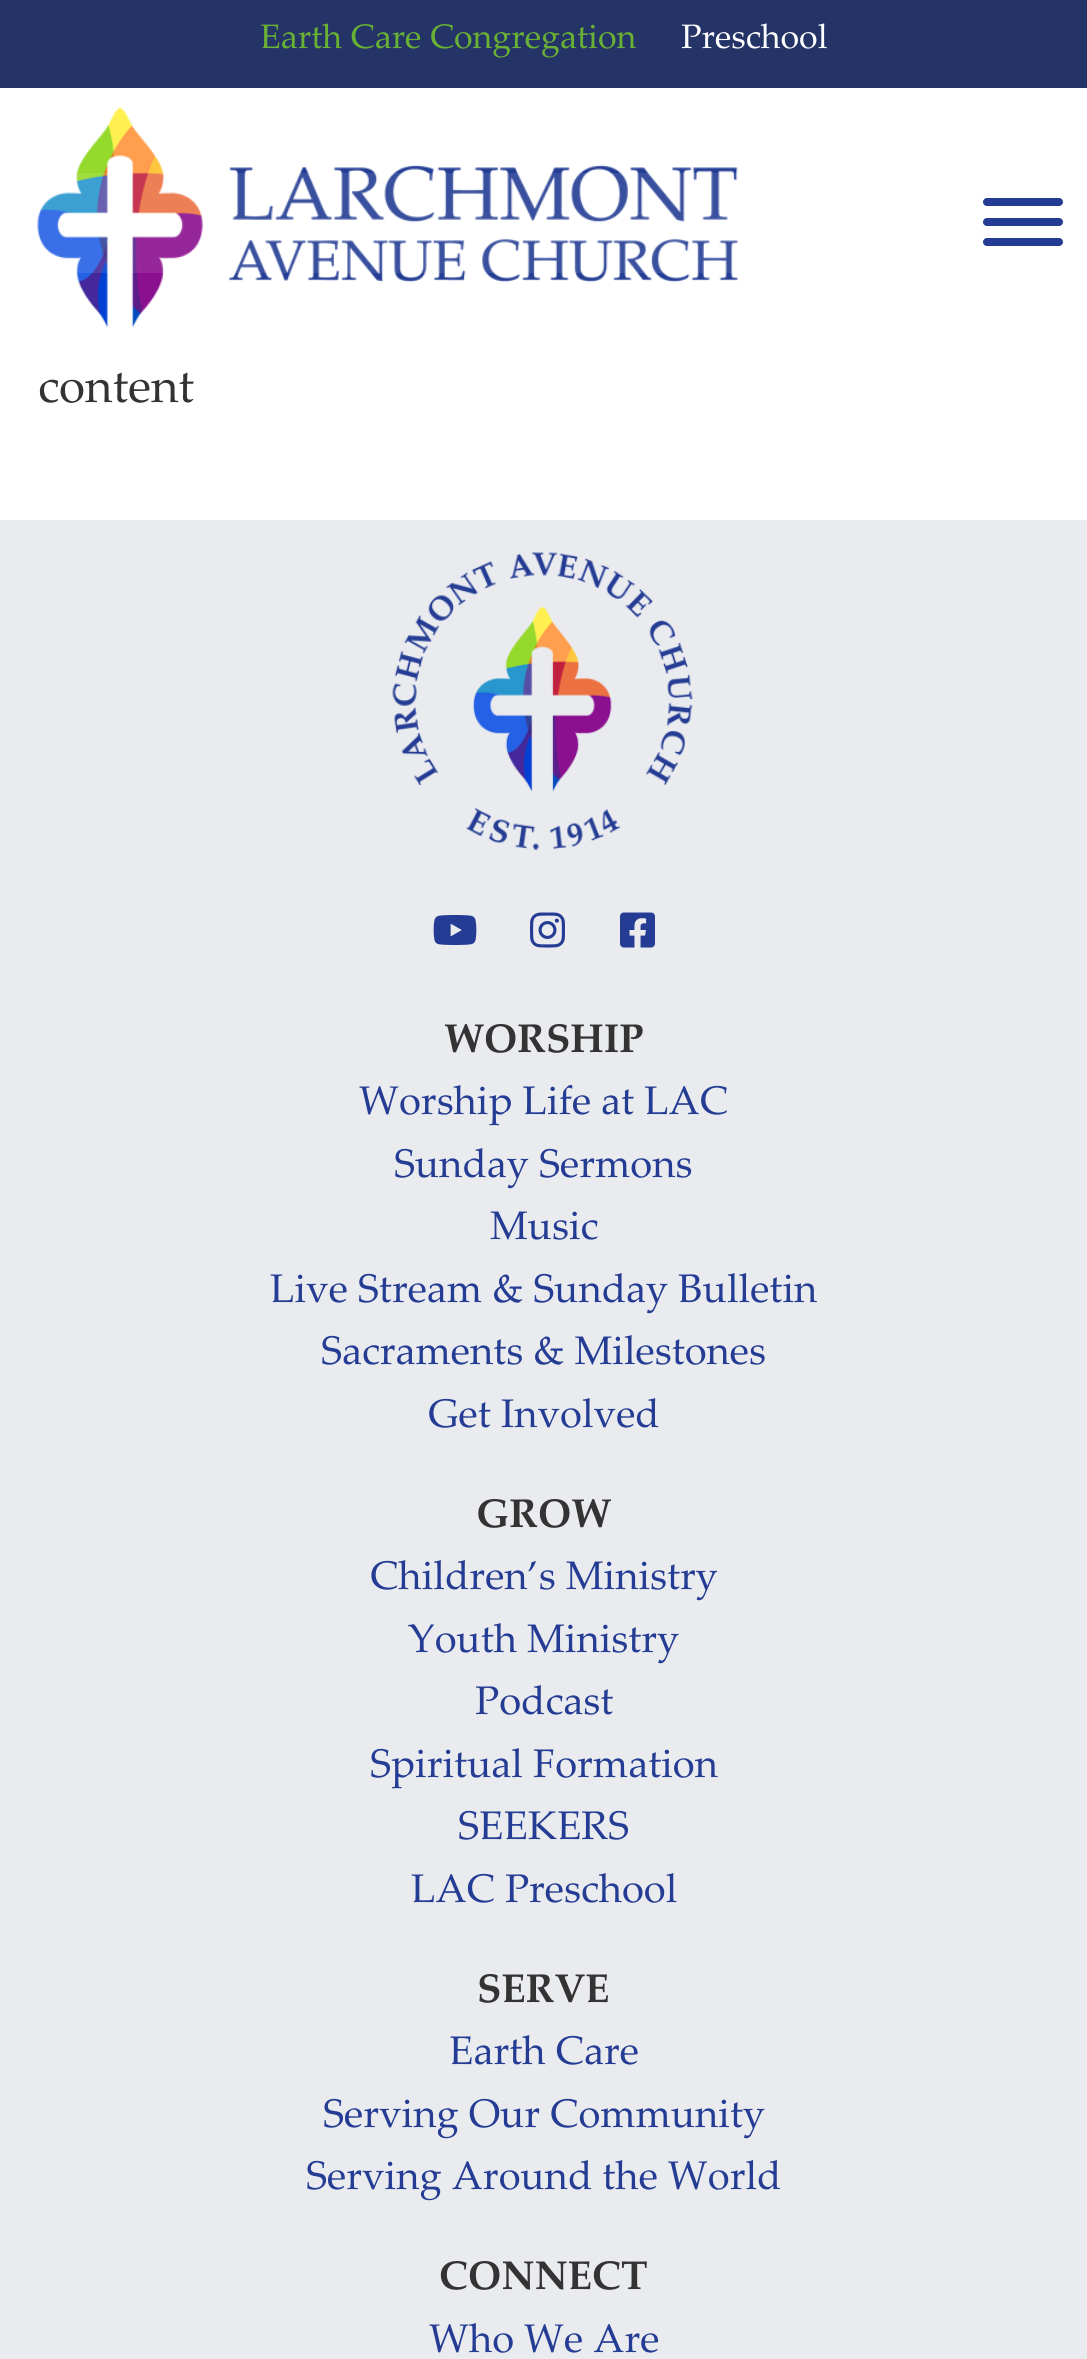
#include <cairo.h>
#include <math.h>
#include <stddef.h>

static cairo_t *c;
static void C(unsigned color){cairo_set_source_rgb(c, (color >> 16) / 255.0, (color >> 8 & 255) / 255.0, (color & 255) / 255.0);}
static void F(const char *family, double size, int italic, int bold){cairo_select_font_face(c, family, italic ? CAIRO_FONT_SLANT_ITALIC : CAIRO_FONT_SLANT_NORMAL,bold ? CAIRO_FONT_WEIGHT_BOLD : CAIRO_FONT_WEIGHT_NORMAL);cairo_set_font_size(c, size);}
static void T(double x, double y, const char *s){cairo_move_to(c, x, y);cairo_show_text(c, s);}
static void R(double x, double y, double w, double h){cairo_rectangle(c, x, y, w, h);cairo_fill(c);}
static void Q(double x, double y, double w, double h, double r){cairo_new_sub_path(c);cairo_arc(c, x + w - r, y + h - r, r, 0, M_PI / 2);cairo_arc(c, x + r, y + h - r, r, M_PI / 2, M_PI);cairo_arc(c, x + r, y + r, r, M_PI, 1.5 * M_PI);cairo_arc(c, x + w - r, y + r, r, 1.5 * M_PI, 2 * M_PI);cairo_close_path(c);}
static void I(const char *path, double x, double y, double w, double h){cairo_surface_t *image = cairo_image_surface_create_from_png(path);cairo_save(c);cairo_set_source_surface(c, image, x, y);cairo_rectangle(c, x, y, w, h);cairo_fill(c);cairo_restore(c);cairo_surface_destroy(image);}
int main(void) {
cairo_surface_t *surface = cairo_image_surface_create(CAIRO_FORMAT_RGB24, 1087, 2359);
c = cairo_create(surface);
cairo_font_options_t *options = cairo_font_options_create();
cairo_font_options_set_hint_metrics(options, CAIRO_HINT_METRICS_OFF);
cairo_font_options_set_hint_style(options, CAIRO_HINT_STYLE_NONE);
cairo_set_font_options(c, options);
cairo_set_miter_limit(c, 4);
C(0xffffff);
cairo_paint(c);
C(0x253467);
R(0,0,1087,88);
F("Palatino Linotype",34,0,0);
C(0x69b134);
T(260,48,"Earth Care Congregation");
C(0xffffff);
T(681,48,"Preschool");
I("1.png",37,107,701,221);
cairo_set_source_rgba(c,1,1,1,0.1);
Q(0,173,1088,100,5);
cairo_fill(c);
C(0x243c93);
Q(983,198,80,8,4);
cairo_fill(c);
Q(983,218,80,8,4);
cairo_fill(c);
Q(983,238,80,8,4);
cairo_fill(c);
F("Palatino Linotype",47.5,0,0);
C(0x333333);
T(38,402,"content");
C(0xe9ebef);
R(0,520,1087,1839);
I("2.png",392,552,301,298);
I("3.png",433,915,44,30);
I("4.png",530,912,35,36);
I("5.png",620,912,35,36);
F("Palatino Linotype",40,0,1);
C(0x333333);
T(444,1052,"WORSHIP");
F("Palatino Linotype",40,0,0);
C(0x243c93);
T(359,1114,"Worship Life at LAC");
T(394,1177,"Sunday Sermons");
T(490,1239,"Music");
T(270,1302,"Live Stream & Sunday Bulletin");
T(321,1364,"Sacraments & Milestones");
T(428,1427,"Get Involved");
F("Palatino Linotype",40,0,1);
C(0x333333);
T(476,1527,"GROW");
F("Palatino Linotype",40,0,0);
C(0x243c93);
T(370,1589,"Children’s Ministry");
T(408,1652,"Youth Ministry");
T(475,1714,"Podcast");
T(370,1777,"Spiritual Formation");
T(458,1839,"SEEKERS");
T(411,1902,"LAC Preschool");
F("Palatino Linotype",40,0,1);
C(0x333333);
T(477,2002,"SERVE");
F("Palatino Linotype",40,0,0);
C(0x243c93);
T(449,2064,"Earth Care");
T(323,2127,"Serving Our Community");
T(306,2189,"Serving Around the World");
F("Palatino Linotype",40,0,1);
C(0x333333);
T(439,2289,"CONNECT");
F("Palatino Linotype",40,0,0);
C(0x243c93);
T(429,2352,"Who We Are");
cairo_surface_write_to_png(surface, "o.png");
cairo_font_options_destroy(options);
cairo_destroy(c);
cairo_surface_destroy(surface);
return 0;
}
